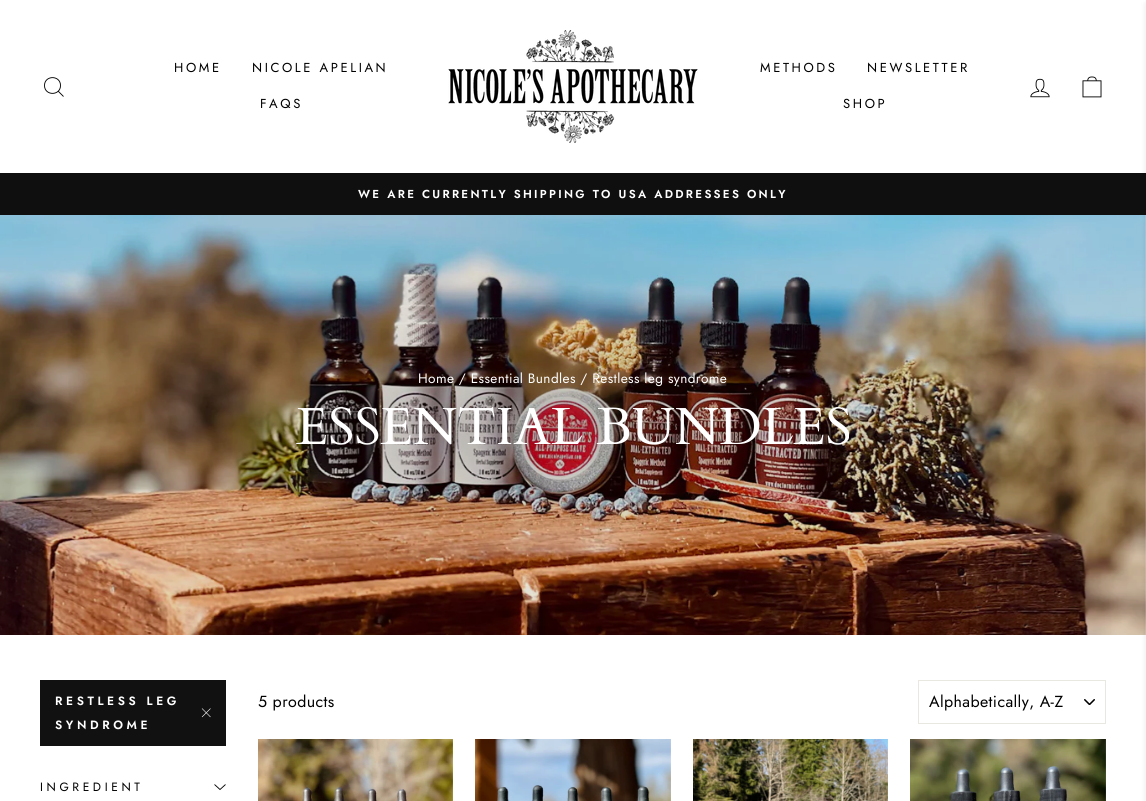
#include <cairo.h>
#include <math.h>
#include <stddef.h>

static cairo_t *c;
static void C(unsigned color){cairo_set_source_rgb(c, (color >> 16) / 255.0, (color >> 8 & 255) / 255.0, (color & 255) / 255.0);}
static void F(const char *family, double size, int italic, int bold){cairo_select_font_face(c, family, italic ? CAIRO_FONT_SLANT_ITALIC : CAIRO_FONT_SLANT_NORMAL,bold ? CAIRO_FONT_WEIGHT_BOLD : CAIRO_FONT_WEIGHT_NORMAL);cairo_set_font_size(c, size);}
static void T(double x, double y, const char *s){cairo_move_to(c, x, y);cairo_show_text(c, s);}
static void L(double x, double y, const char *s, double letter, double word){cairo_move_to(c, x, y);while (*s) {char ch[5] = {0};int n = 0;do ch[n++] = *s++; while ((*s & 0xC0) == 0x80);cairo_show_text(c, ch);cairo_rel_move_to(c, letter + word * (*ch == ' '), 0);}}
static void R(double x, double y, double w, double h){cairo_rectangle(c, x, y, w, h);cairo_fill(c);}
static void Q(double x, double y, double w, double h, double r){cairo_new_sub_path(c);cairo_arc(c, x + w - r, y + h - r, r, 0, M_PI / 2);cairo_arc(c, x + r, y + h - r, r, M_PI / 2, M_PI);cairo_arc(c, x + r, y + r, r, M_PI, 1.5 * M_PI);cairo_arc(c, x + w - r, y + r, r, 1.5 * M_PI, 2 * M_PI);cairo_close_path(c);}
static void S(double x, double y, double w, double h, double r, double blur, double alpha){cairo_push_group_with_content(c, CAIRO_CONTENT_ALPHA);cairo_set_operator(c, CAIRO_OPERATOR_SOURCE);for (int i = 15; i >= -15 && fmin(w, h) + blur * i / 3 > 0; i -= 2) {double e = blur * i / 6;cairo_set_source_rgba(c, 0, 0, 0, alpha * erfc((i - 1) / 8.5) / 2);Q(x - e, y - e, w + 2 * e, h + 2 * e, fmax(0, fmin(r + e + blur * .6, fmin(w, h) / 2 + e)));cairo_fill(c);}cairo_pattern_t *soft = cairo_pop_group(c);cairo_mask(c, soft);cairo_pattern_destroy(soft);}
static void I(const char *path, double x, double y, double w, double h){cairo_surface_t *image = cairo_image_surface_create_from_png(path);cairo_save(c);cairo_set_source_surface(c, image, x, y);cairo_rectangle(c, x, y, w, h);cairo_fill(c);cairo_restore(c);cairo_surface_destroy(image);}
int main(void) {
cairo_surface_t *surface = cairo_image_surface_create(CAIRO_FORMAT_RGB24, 1146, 801);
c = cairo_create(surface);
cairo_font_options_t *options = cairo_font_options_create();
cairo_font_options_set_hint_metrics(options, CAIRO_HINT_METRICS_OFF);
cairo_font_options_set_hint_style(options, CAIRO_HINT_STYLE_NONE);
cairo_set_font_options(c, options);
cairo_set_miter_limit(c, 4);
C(0xffffff);
cairo_paint(c);
cairo_new_path(c);
cairo_move_to(c,60.5,85.5);
cairo_curve_to(c,60.5,96,44.5,96,44.5,85.5);
cairo_curve_to(c,44.5,75,60.5,75,60.5,85.5);
cairo_close_path(c);
cairo_move_to(c,63.5,96.5);
cairo_line_to(c,58.5,91.5);
C(0x000000);
cairo_set_line_width(c,.9);
cairo_stroke(c);
F("Jost",13,0,0);
L(174,72,"HOME",2.6,0);
L(252,72,"NICOLE APELIAN",2.6,0);
L(260,108,"FAQS",2.6,0);
I("1.png",448,30,250,113);
L(760,72,"METHODS",2.6,0);
L(867,72,"NEWSLETTER",2.6,0);
L(843,108,"SHOP",2.6,0);
I("2.png",1030,78,20,20);
I("3.png",1082,76,20,22);
C(0x0f0f0f);
R(0,173,1146,42);
F("Jost SemiBold",11.55,0,0);
C(0xffffff);
L(358,198,"WE ARE CURRENTLY SHIPPING TO USA ADDRESSES ONLY",2.3,0);
I("4.png",0,215,1146,420);
F("Jost",13.6,0,0);
L(418,383,"Home / Essential Bundles / Restless leg syndrome",.4,0);
F("Cardo",52.25,0,0);
T(296,444,"ESSENTIAL BUNDLES");
C(0x111111);
R(40,680,186,66);
F("Jost SemiBold",12,0,0);
C(0xffffff);
L(55,705,"RESTLESS LEG",3.6,0);
L(55,729,"SYNDROME",3.6,0);
cairo_new_path(c);
cairo_move_to(c,202,708.5);
cairo_line_to(c,210.5,717);
cairo_move_to(c,210.5,708.5);
cairo_line_to(c,202,717);
cairo_set_line_width(c,.6);
cairo_stroke(c);
F("Jost",12,0,0);
C(0x000000);
L(40,791,"INGREDIENT",3.6,0);
cairo_new_path(c);
cairo_move_to(c,214.5,784.5);
cairo_line_to(c,220,789.5);
cairo_line_to(c,225.5,784.5);
cairo_set_line_width(c,.9);
cairo_stroke(c);
F("Jost",16,0,0);
L(258,707,"5 products",.4,0);
I("5.png",1084,699,11,6);
cairo_rectangle(c,918.5,680.5,187,43);
C(0xe8e8e1);
cairo_set_line_width(c,1);
cairo_stroke(c);
C(0x000000);
L(929,707,"Alphabetically, A-Z",.4,0);
I("6.png",258,739,195,62);
I("7.png",475,739,196,62);
I("8.png",693,739,195,62);
I("9.png",910,739,196,62);
C(0x000000);
S(1146,4,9,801,0,3,.1);
cairo_surface_write_to_png(surface, "o.png");
cairo_font_options_destroy(options);
cairo_destroy(c);
cairo_surface_destroy(surface);
return 0;
}
